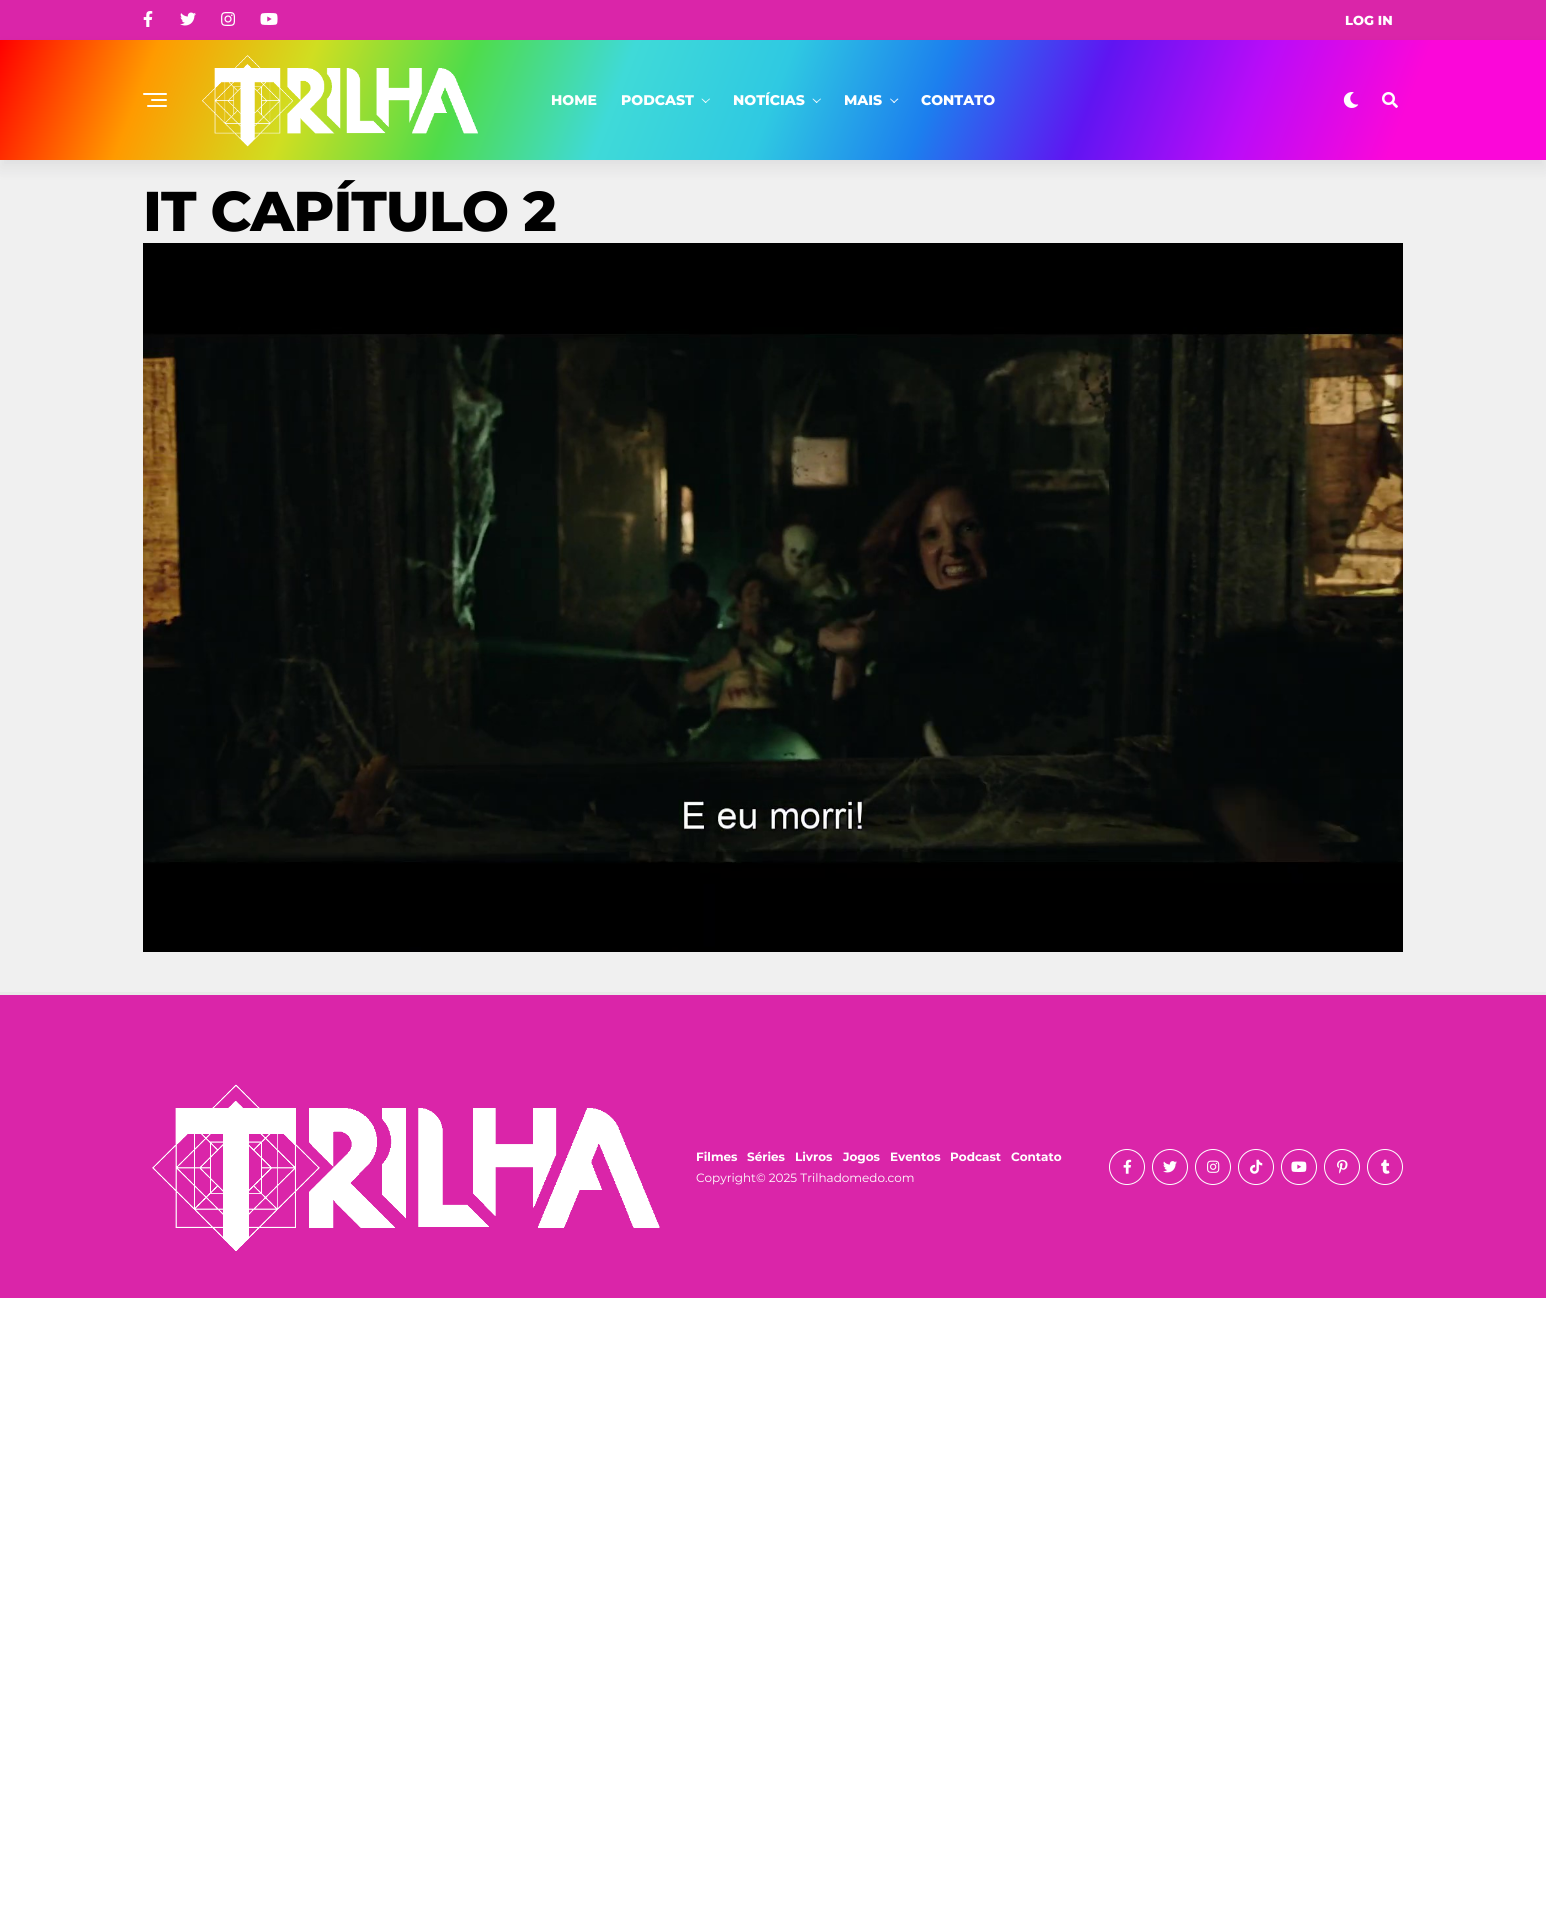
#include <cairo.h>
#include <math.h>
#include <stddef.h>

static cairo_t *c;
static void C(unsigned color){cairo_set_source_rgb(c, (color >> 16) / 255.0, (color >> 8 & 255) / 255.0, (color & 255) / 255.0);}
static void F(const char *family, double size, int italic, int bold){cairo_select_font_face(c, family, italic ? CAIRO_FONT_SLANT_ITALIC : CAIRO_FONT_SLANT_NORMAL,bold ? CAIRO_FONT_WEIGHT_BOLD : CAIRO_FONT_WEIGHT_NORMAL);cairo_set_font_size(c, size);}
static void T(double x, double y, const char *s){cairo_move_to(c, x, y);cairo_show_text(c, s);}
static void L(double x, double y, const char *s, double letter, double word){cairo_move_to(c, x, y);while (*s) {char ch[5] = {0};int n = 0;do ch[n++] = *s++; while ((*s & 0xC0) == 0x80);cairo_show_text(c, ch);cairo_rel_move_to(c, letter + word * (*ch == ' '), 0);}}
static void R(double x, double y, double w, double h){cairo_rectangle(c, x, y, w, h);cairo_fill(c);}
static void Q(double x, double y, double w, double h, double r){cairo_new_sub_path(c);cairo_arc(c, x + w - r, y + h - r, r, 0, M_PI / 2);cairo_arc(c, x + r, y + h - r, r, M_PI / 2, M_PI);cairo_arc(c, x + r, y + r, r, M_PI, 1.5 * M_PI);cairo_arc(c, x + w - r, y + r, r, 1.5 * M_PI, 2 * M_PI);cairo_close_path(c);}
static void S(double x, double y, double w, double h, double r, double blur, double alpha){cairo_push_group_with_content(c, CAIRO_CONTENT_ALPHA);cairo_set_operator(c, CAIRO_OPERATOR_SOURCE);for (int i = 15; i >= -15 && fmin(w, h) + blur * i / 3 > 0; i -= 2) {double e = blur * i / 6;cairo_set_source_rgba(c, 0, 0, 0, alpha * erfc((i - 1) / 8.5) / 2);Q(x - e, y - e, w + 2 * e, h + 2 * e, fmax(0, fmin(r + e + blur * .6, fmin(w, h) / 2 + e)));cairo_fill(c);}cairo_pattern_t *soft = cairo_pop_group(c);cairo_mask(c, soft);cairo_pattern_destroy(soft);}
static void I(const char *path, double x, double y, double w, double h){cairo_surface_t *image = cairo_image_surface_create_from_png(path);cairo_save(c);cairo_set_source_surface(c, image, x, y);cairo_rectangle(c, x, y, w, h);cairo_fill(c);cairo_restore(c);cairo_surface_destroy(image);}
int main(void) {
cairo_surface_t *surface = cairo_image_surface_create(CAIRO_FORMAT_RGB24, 1546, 1919);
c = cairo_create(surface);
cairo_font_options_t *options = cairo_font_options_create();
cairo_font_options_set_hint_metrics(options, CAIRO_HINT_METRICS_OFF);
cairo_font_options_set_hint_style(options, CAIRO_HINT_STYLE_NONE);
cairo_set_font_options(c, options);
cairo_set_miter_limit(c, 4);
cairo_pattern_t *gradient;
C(0xffffff);
cairo_paint(c);
C(0xda25a9);
R(0,0,1546,40);
I("1.png",143,11,10,16);
I("2.png",180,12,16,14);
I("3.png",221,12,14,14);
I("4.png",260,13,18,12);
F("Montserrat ExtraBold",13,0,0);
C(0xffffff);
T(1345,25,"LOG IN");
C(0xf0f0f0);
R(0,160,1546,832);
C(0x15151e);
S(0,48,1546,120,0,8,.08);
gradient = cairo_pattern_create_linear(79,-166,1467,366);
cairo_pattern_add_color_stop_rgba(gradient,0,1,0,0,1);
cairo_pattern_add_color_stop_rgba(gradient,.1,1,0.604,0,1);
cairo_pattern_add_color_stop_rgba(gradient,.2,0.816,0.871,0.129,1);
cairo_pattern_add_color_stop_rgba(gradient,.3,0.31,0.863,0.29,1);
cairo_pattern_add_color_stop_rgba(gradient,.4,0.247,0.855,0.847,1);
cairo_pattern_add_color_stop_rgba(gradient,.5,0.184,0.788,0.886,1);
cairo_pattern_add_color_stop_rgba(gradient,.6,0.11,0.498,0.933,1);
cairo_pattern_add_color_stop_rgba(gradient,.7,0.373,0.082,0.949,1);
cairo_pattern_add_color_stop_rgba(gradient,.8,0.729,0.047,0.973,1);
cairo_pattern_add_color_stop_rgba(gradient,.9,0.984,0.027,0.851,1);
cairo_set_source(c,gradient);
cairo_pattern_destroy(gradient);
R(0,40,1546,120);
C(0xffffff);
Q(143,93,24,2,1);
cairo_fill(c);
Q(151,99,16,2,1);
cairo_fill(c);
Q(147,105,20,2,1);
cairo_fill(c);
I("5.png",202,55,276,92);
F("Montserrat ExtraBold",14,0,0);
T(551,105,"HOME");
T(621,105,"PODCAST");
cairo_new_path(c);
cairo_move_to(c,709.5,98.5);
cairo_line_to(c,710,99);
cairo_line_to(c,705.5,103);
cairo_line_to(c,705,102.5);
cairo_close_path(c);
cairo_fill(c);
cairo_new_path(c);
cairo_move_to(c,702,98.5);
cairo_line_to(c,706.5,102.5);
cairo_line_to(c,705.5,103);
cairo_line_to(c,701.5,99);
cairo_close_path(c);
cairo_fill(c);
T(733,105,"NOTÍCIAS");
cairo_new_path(c);
cairo_move_to(c,820.5,98.5);
cairo_line_to(c,821,99);
cairo_line_to(c,816.5,103);
cairo_line_to(c,816,102.5);
cairo_close_path(c);
cairo_fill(c);
cairo_new_path(c);
cairo_move_to(c,813,98.5);
cairo_line_to(c,817.5,102.5);
cairo_line_to(c,816.5,103);
cairo_line_to(c,812.5,99);
cairo_close_path(c);
cairo_fill(c);
T(844,105,"MAIS");
cairo_new_path(c);
cairo_move_to(c,897.5,98.5);
cairo_line_to(c,898.5,99);
cairo_line_to(c,894,103);
cairo_line_to(c,893.5,102.5);
cairo_close_path(c);
cairo_fill(c);
cairo_new_path(c);
cairo_move_to(c,890.5,98.5);
cairo_line_to(c,895,102.5);
cairo_line_to(c,894,103);
cairo_line_to(c,890,99);
cairo_close_path(c);
cairo_fill(c);
T(921,105,"CONTATO");
I("6.png",1343,92,16,16);
I("7.png",1382,92,16,16);
F("Montserrat ExtraBold",56,0,0);
C(0x000000);
L(143,231,"IT CAPÍTULO 2",-1.1,0);
I("8.png",143,243,1260,709);
C(0xda25a9);
R(0,995,1546,303);
C(0xe9e9e9);
R(0,992,1546,3);
I("9.png",152,1084,508,167);
F("Montserrat",12,0,1);
C(0xffffff);
T(696,1161,"Filmes");
T(747,1161,"Séries");
T(795,1161,"Livros");
T(843,1161,"Jogos");
T(890,1161,"Eventos");
T(950,1161,"Podcast");
T(1011,1161,"Contato");
F("Montserrat",12,0,0);
T(696,1182,"Copyright© 2025 Trilhadomedo.com");
cairo_new_path(c);
cairo_arc(c,1127,1167,17.5,0,2 * M_PI);
cairo_set_line_width(c,1);
cairo_stroke(c);
I("10.png",1123,1159,9,15);
cairo_arc(c,1170,1167,17.5,0,2 * M_PI);
cairo_stroke(c);
I("11.png",1163,1161,14,12);
cairo_arc(c,1213,1167,17.5,0,2 * M_PI);
cairo_stroke(c);
I("12.png",1207,1160,13,13);
cairo_arc(c,1256,1167,17.5,0,2 * M_PI);
cairo_stroke(c);
I("13.png",1250,1159,13,15);
cairo_arc(c,1299,1167,17.5,0,2 * M_PI);
cairo_stroke(c);
I("14.png",1291,1161,16,11);
cairo_arc(c,1342,1167,17.5,0,2 * M_PI);
cairo_stroke(c);
I("15.png",1337,1159,11,15);
cairo_arc(c,1385,1167,17.5,0,2 * M_PI);
cairo_stroke(c);
I("16.png",1381,1159,9,15);
cairo_surface_write_to_png(surface, "o.png");
cairo_font_options_destroy(options);
cairo_destroy(c);
cairo_surface_destroy(surface);
return 0;
}
